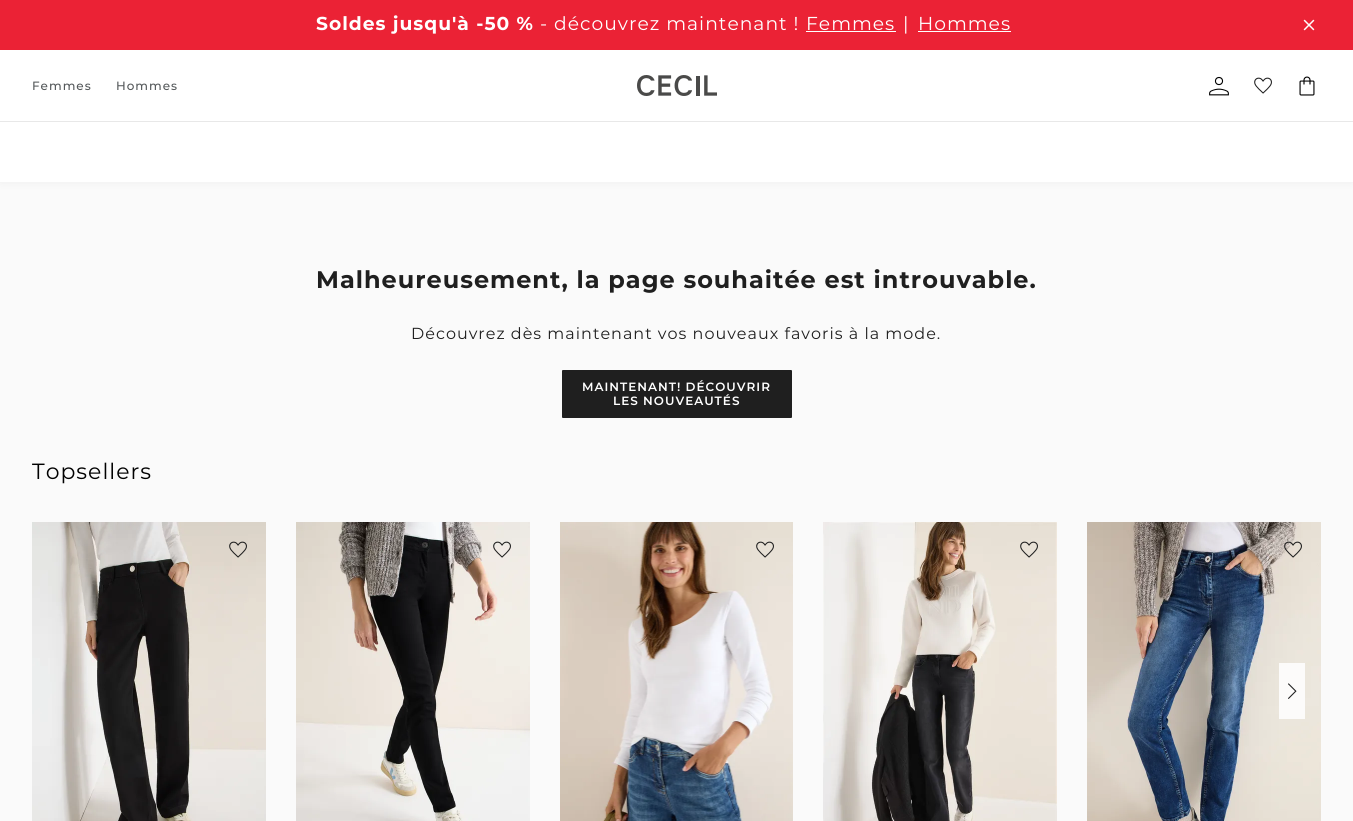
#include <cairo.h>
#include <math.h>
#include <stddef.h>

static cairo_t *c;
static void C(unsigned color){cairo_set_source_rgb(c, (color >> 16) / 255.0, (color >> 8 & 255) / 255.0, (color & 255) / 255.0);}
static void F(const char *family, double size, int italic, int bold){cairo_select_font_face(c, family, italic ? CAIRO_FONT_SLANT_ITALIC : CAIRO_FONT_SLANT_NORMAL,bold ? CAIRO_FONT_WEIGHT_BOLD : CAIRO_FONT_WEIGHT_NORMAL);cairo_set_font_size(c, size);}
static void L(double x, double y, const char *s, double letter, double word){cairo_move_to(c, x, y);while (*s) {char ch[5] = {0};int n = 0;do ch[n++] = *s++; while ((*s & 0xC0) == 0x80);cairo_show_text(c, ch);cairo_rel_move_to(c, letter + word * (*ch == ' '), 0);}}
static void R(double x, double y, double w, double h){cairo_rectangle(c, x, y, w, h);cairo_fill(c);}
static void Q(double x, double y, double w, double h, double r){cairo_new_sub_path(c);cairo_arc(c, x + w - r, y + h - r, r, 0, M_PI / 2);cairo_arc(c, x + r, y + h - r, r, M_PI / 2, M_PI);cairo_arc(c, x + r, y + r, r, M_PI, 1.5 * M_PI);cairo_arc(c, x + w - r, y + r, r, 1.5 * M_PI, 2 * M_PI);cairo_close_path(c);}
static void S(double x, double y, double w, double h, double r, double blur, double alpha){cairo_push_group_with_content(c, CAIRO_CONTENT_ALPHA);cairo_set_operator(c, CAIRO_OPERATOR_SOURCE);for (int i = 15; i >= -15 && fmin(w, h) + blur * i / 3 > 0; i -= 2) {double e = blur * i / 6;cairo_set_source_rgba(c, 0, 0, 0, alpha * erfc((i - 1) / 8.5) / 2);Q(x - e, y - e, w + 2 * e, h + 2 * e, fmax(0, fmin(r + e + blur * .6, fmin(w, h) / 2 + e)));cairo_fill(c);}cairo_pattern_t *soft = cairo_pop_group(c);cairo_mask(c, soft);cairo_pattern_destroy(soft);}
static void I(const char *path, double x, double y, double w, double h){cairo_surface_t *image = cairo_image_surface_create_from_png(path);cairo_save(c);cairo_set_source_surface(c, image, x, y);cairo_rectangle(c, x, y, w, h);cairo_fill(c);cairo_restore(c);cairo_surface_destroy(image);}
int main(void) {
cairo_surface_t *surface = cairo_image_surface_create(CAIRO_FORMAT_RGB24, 1353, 821);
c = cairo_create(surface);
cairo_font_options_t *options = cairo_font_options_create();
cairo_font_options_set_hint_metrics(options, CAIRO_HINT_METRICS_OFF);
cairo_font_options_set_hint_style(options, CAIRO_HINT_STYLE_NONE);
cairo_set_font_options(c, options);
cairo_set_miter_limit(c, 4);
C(0xfafafa);
cairo_paint(c);
C(0x000000);
S(0,1,1353,182,0,5,.04);
C(0xffffff);
R(0,50,1353,132);
C(0xeb2235);
R(0,0,1353,50);
F("Montserrat",18.7,0,1);
C(0xffffff);
L(316,30,"Soldes jusqu'à -50 %",1,0);
F("Montserrat",18.7,0,0);
L(540,30,"- découvrez maintenant !",1,0);
L(806,30,"Femmes",1,0);
R(806,31,90,1);
L(903,30,"|",1,0);
L(918,30,"Hommes",1,0);
R(918,31,93,1);
I("1.png",1303,19,12,12);
F("Montserrat Medium",12,0,0);
C(0x54585a);
L(32,90,"Femmes",1,0);
L(116,90,"Hommes",1,0);
I("2.png",637,75,80,21);
I("3.png",1209,76,20,20);
I("4.png",1254,77,18,17);
I("5.png",1299,76,16,20);
C(0xe8e8e8);
R(0,121,1353,1);
F("Montserrat",24,0,1);
C(0x1f1f1f);
L(316,288,"Malheureusement, la page souhaitée est introuvable.",1,0);
F("Montserrat",16,0,0);
L(411,339,"Découvrez dès maintenant vos nouveaux favoris à la mode.",1,0);
Q(562,370,230,48,1);
cairo_fill(c);
F("Montserrat SemiBold",12,0,0);
C(0xffffff);
L(582,391,"MAINTENANT! DÉCOUVRIR",1,0);
L(613,405,"LES NOUVEAUTÉS",1,0);
F("Montserrat",22,0,0);
C(0x000000);
L(32,479,"Topsellers",1,0);
I("6.png",32,522,234,299);
I("7.png",229,541,18,17);
I("8.png",296,522,234,299);
I("9.png",493,541,18,17);
I("10.png",560,522,233,299);
I("11.png",756,541,18,17);
I("12.png",823,522,234,299);
I("13.png",1020,541,18,17);
I("14.png",1087,522,234,299);
I("15.png",1284,541,18,17);
cairo_set_source_rgba(c,1,1,1,0.85);
R(1279,663,26,56);
I("16.png",1288,683,9,16);
cairo_surface_write_to_png(surface, "o.png");
cairo_font_options_destroy(options);
cairo_destroy(c);
cairo_surface_destroy(surface);
return 0;
}
